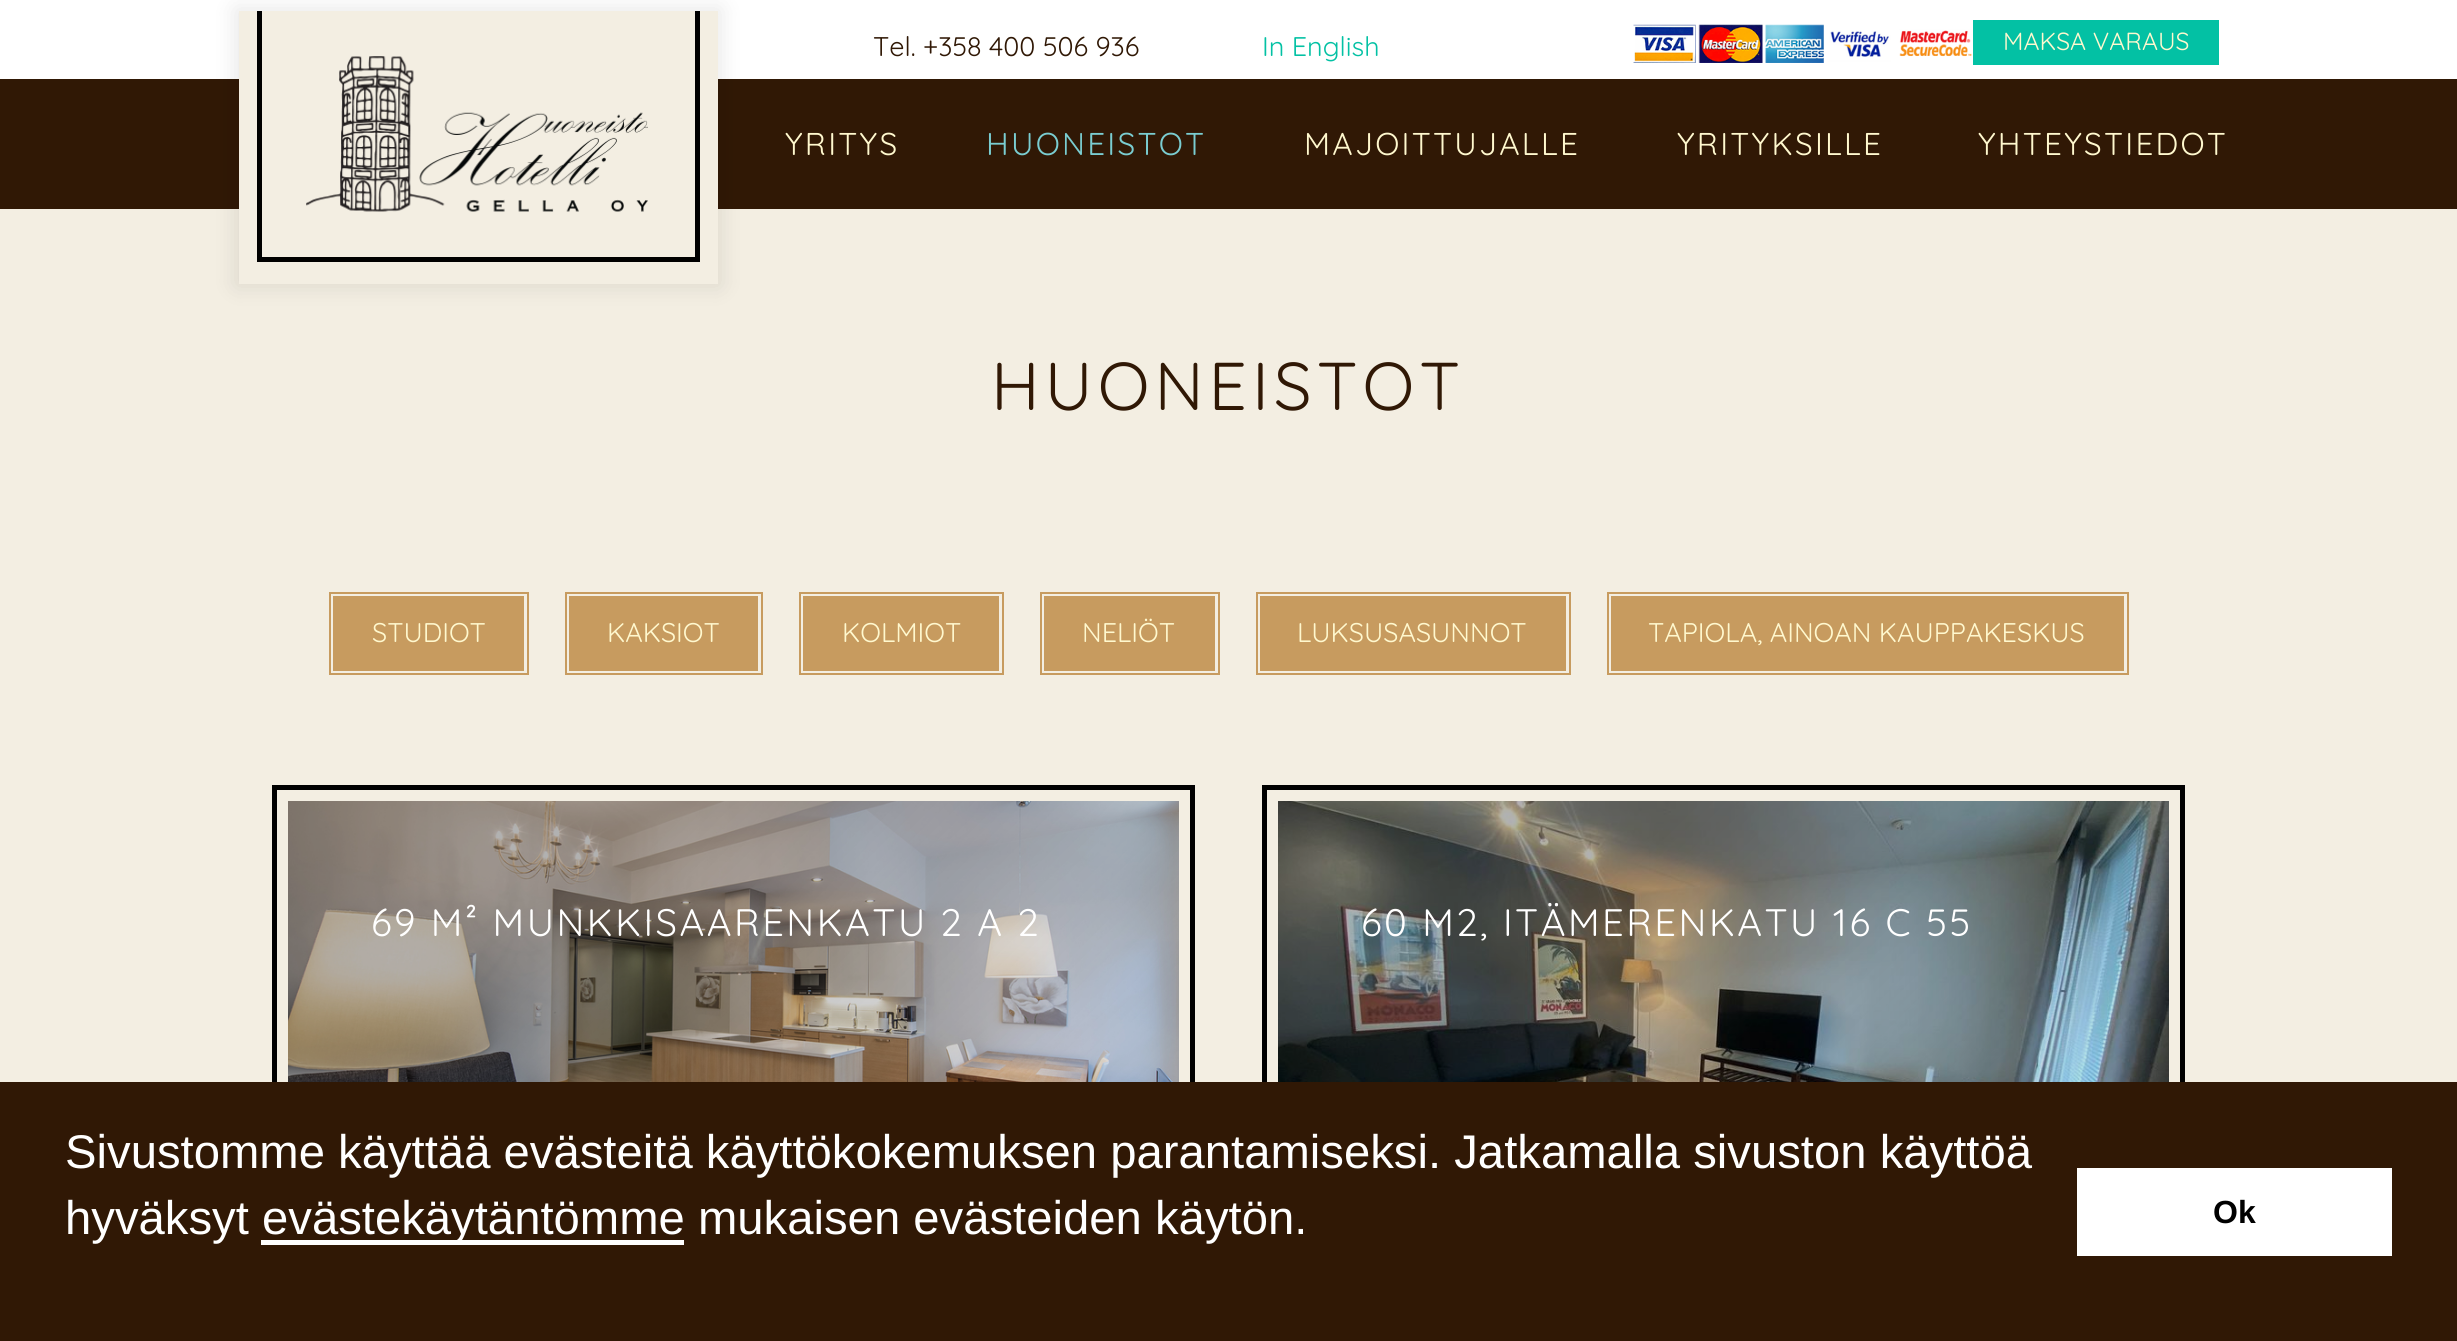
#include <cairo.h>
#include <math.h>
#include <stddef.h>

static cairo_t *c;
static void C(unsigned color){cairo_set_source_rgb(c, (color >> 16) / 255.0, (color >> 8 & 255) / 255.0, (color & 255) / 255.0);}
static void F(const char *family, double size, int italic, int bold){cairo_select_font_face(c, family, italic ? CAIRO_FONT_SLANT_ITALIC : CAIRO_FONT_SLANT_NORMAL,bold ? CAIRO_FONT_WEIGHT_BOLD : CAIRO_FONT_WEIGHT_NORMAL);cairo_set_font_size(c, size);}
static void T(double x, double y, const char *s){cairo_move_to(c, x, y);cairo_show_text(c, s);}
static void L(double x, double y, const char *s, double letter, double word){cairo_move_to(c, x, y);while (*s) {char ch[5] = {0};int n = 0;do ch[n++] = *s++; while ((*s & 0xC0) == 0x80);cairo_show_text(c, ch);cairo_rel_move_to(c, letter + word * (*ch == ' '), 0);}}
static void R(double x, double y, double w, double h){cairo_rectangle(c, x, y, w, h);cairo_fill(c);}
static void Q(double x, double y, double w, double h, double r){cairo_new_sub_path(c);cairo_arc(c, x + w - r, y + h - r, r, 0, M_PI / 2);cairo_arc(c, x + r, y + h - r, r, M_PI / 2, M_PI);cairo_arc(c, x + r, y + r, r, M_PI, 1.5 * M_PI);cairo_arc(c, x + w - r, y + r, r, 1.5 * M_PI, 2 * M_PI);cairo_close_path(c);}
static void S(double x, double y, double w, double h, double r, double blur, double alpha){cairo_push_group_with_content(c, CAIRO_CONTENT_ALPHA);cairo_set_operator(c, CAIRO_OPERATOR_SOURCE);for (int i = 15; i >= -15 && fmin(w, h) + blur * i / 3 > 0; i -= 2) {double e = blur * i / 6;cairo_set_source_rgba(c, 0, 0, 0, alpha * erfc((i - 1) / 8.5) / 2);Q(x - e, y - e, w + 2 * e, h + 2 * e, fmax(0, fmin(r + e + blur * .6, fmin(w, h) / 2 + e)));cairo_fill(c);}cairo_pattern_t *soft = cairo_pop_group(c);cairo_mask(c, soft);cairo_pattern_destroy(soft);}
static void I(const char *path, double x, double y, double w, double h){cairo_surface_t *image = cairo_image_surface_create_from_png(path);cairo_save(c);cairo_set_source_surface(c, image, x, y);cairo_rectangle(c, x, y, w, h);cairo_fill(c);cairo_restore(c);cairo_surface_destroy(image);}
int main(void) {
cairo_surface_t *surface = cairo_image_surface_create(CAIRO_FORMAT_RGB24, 2457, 1341);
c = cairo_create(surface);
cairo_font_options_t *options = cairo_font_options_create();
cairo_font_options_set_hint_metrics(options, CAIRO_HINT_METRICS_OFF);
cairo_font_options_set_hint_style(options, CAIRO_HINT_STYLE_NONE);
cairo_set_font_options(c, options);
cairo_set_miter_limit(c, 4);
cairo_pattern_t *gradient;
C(0xf3eee2);
cairo_paint(c);
C(0xffffff);
R(0,0,2457,79);
C(0x301805);
R(0,79,2457,130);
C(0x000000);
S(236,9,484,277,0,11,.1);
C(0xf3eee2);
R(239,11,479,273);
C(0x000000);
R(695,11,5,250);
R(257,257,443,5);
R(257,11,5,250);
I("1.png",306,56,342,156);
F("Quicksand Light",27,0,0);
C(0x301805);
T(873,56,"Tel. +358 400 506 936");
C(0x03c1a4);
T(1262,56,"In English");
I("2.png",1633,24,339,39);
R(1973,20,246,45);
F("Quicksand Light",24.75,0,0);
C(0xfff8ce);
T(2003,50,"MAKSA VARAUS");
F("Quicksand Light",31.5,0,0);
L(785,155,"YRITYS",2.25,0);
C(0x7acdd1);
L(986,155,"HUONEISTOT",2.25,0);
C(0xfff8ce);
L(1304,155,"MAJOITTUJALLE",2.25,0);
L(1677,155,"YRITYKSILLE",2.25,0);
L(1978,155,"YHTEYSTIEDOT",2.25,0);
F("Quicksand Light",67.5,0,0);
C(0x301805);
L(991,410,"HUONEISTOT",5,0);
C(0xc79b5f);
R(333,596,191,75);
cairo_rectangle(c,330,593,198,81);
cairo_stroke(c);
F("Quicksand Light",27,0,0);
C(0xfff8ce);
T(372,642,"STUDIOT");
C(0xc79b5f);
R(569,596,189,75);
cairo_rectangle(c,566,593,196,81);
cairo_stroke(c);
C(0xfff8ce);
T(607,642,"KAKSIOT");
C(0xc79b5f);
R(803,596,196,75);
cairo_rectangle(c,800,593,203,81);
cairo_stroke(c);
C(0xfff8ce);
T(842,642,"KOLMIOT");
C(0xc79b5f);
R(1044,596,171,75);
cairo_rectangle(c,1041,593,178,81);
cairo_stroke(c);
C(0xfff8ce);
T(1082,642,"NELIÖT");
C(0xc79b5f);
R(1260,596,306,75);
cairo_rectangle(c,1257,593,313,81);
cairo_stroke(c);
C(0xfff8ce);
T(1297,642,"LUKSUSASUNNOT");
C(0xc79b5f);
R(1611,596,513,75);
cairo_rectangle(c,1608,593,520,81);
cairo_stroke(c);
C(0xfff8ce);
T(1648,642,"TAPIOLA, AINOAN KAUPPAKESKUS");
cairo_rectangle(c,274.5,787.5,918,508);
C(0x000000);
cairo_set_line_width(c,5);
cairo_stroke(c);
cairo_rectangle(c,282.5,795.5,902,493);
C(0xf3eee2);
cairo_set_line_width(c,11);
cairo_stroke(c);
I("3.png",288,801,891,281);
gradient = cairo_pattern_create_linear(390,699,1077,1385);
cairo_pattern_add_color_stop_rgba(gradient,0,0,0,0,.3);
cairo_pattern_add_color_stop_rgba(gradient,.3,0,0,0,.3);
cairo_pattern_add_color_stop_rgba(gradient,1,0,0,0,0);
cairo_set_source(c,gradient);
cairo_pattern_destroy(gradient);
R(288,801,891,281);
F("Quicksand Light",38.25,0,0);
C(0xffffff);
L(371,936,"69 M² MUNKKISAARENKATU 2 A 2",2.5,0);
cairo_rectangle(c,1264.5,787.5,918,508);
C(0x000000);
cairo_set_line_width(c,5);
cairo_stroke(c);
cairo_rectangle(c,1272.5,795.5,902,493);
C(0xf3eee2);
cairo_set_line_width(c,11);
cairo_stroke(c);
I("4.png",1278,801,891,281);
gradient = cairo_pattern_create_linear(1380,699,2067,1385);
cairo_pattern_add_color_stop_rgba(gradient,0,0,0,0,.3);
cairo_pattern_add_color_stop_rgba(gradient,.3,0,0,0,.3);
cairo_pattern_add_color_stop_rgba(gradient,1,0,0,0,0);
cairo_set_source(c,gradient);
cairo_pattern_destroy(gradient);
R(1278,801,891,281);
C(0xffffff);
L(1361,936,"60 M2, ITÄMERENKATU 16 C 55",2.5,0);
C(0x301805);
R(0,1082,2457,259);
F("Liberation Sans",47.25,0,0);
C(0xffffff);
T(65,1168,"Sivustomme käyttää evästeitä käyttökokemuksen parantamiseksi. Jatkamalla sivuston käyttöä");
T(65,1234,"hyväksyt");
R(261,1240,423,5);
T(262,1234,"evästekäytäntömme mukaisen evästeiden käytön.");
R(2077,1168,315,88);
F("Liberation Sans",32,0,1);
C(0x000000);
T(2213,1223,"Ok");
cairo_surface_write_to_png(surface, "o.png");
cairo_font_options_destroy(options);
cairo_destroy(c);
cairo_surface_destroy(surface);
return 0;
}
